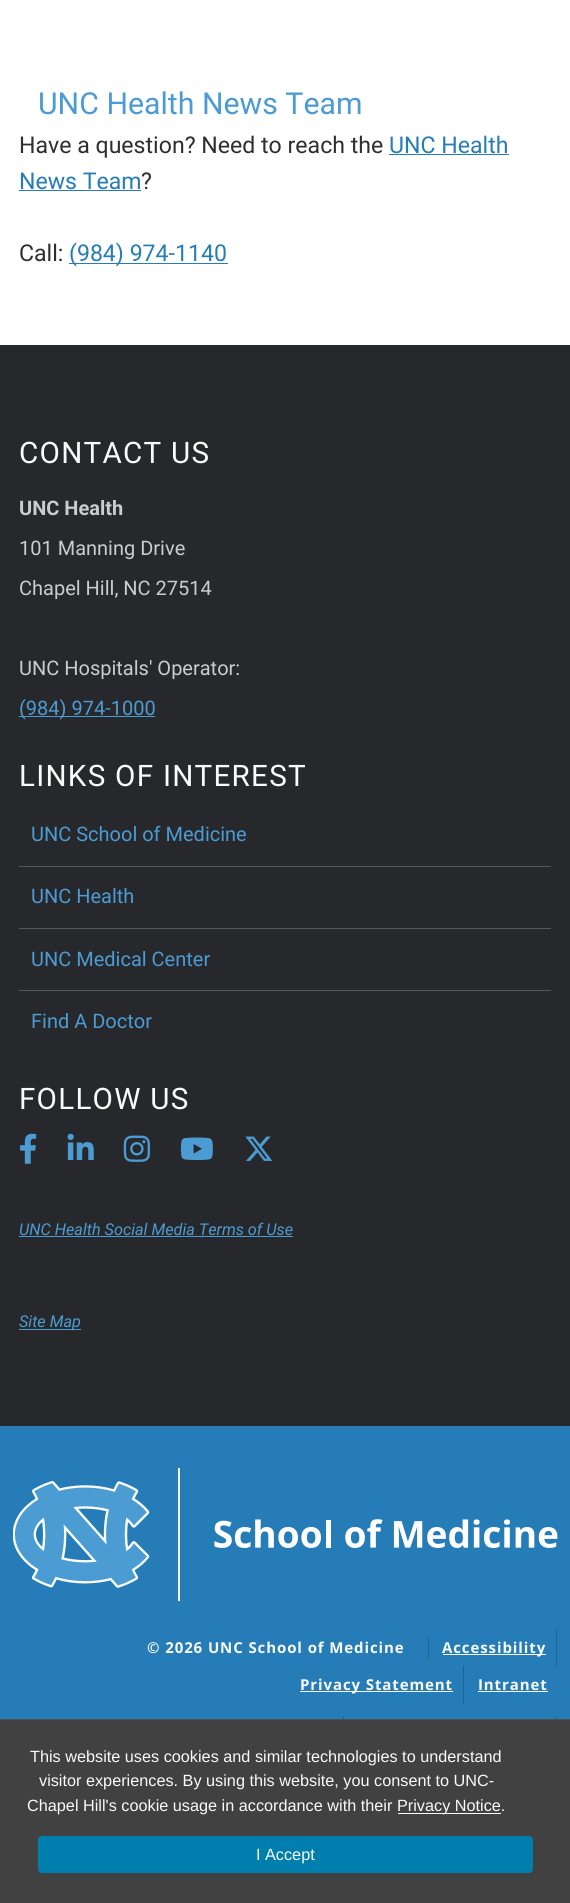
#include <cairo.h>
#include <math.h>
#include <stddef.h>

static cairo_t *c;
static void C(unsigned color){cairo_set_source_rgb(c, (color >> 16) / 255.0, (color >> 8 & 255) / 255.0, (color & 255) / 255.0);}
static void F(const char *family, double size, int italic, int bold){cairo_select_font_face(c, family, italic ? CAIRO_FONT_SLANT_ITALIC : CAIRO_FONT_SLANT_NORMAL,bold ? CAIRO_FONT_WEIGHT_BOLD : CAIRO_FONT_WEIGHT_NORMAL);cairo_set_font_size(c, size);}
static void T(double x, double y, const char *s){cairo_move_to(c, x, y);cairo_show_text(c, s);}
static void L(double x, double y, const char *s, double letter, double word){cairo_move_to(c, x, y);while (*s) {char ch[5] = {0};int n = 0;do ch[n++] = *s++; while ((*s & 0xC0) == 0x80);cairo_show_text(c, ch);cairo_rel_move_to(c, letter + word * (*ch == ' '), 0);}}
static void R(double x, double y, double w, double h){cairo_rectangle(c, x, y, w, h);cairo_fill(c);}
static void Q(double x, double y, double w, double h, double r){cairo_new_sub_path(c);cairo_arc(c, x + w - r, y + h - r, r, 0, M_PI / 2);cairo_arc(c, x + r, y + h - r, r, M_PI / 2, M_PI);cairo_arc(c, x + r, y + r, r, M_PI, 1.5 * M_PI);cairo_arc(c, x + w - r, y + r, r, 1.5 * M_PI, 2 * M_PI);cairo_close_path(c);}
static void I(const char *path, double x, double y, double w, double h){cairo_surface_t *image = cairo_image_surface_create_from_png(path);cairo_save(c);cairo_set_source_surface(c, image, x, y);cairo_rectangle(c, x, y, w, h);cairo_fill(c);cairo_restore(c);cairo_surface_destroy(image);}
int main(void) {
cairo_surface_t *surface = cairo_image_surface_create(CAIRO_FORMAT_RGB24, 570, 1903);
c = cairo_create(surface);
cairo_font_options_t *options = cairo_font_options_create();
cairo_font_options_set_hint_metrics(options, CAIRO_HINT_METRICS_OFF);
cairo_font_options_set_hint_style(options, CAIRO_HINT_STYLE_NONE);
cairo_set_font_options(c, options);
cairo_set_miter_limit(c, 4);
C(0xffffff);
cairo_paint(c);
F("Roboto",30.25,0,0);
C(0x4c9bd3);
T(38,114,"UNC Health News Team");
F("Roboto",23.1,0,0);
C(0x2e2e2e);
T(19,153,"Have a question? Need to reach the");
C(0x257cb7);
T(389,153,"UNC Health");
R(389,154,120,1);
T(19,189,"News Team");
R(19,190,122,1);
C(0x2e2e2e);
T(141,189,"?");
T(19,261,"Call:");
C(0x257cb7);
R(69,263,159,1);
T(69,261,"(984) 974-1140");
C(0x26282b);
R(0,345,570,1081);
F("Roboto",29.6,0,0);
C(0xfafafa);
L(19,463,"CONTACT US",1.25,0);
F("Roboto",20,0,1);
C(0xcccccc);
T(19,515,"UNC Health");
F("Roboto",20,0,0);
T(19,555,"101 Manning Drive");
T(19,595,"Chapel Hill, NC 27514");
T(19,675,"UNC Hospitals' Operator:");
C(0x4b9cd3);
R(19,716,136,1);
C(0x4c9bd3);
T(19,715,"(984) 974-1000");
F("Roboto",29.6,0,0);
C(0xfafafa);
L(19,786,"LINKS OF INTEREST",1.25,0);
C(0x505962);
R(19,866,532,1);
F("Roboto",20,0,0);
C(0x4c9bd3);
T(31,841,"UNC School of Medicine");
C(0x505962);
R(19,928,532,1);
C(0x4c9bd3);
T(31,903,"UNC Health");
C(0x505962);
R(19,990,532,1);
C(0x4c9bd3);
T(31,966,"UNC Medical Center");
T(31,1028,"Find A Doctor");
F("Roboto",29.6,0,0);
C(0xfafafa);
L(19,1109,"FOLLOW US",1.25,0);
I("1.png",20,1133,17,31);
I("2.png",67,1133,27,27);
I("3.png",123,1135,27,27);
I("4.png",180,1137,33,23);
I("5.png",245,1136,28,25);
F("Roboto",16.25,1,0);
C(0x4c9bd3);
T(19,1235,"UNC Health Social Media Terms of Use");
C(0x4b9cd3);
R(19,1236,274,1);
R(19,1329,62,1);
C(0x4c9bd3);
T(19,1327,"Site Map");
C(0x257cb7);
R(0,1426,570,293);
I("6.png",13,1468,545,133);
C(0x1e6392);
R(428,1638,1,20);
F("Open Sans",15,0,1);
C(0xfafafa);
L(147,1653,"© 2026 UNC School of Medicine",.9,0);
C(0x1e6392);
R(556,1629,1,37);
C(0xffffff);
R(443,1654,103,1);
C(0xfafafa);
L(442,1653,"Accessibility",.9,0);
C(0x1e6392);
R(463,1666,1,38);
C(0xffffff);
R(300,1691,153,1);
C(0xfafafa);
L(300,1690,"Privacy Statement",.9,0);
L(478,1690,"Intranet",.9,0);
C(0xffffff);
R(478,1691,70,1);
C(0x1e6392);
R(343,1716,1,3);
R(556,1716,1,3);
C(0x414141);
R(0,1720,570,183);
C(0x515151);
R(0,1719,570,1);
F("Liberation Sans",16.25,0,0);
C(0xfafafa);
T(30,1762,"This website uses cookies and similar technologies to understand");
T(39,1786,"visitor experiences. By using this website, you consent to UNC-");
T(27,1811,"Chapel Hill's cookie usage in accordance with their");
C(0xffffff);
R(398,1813,103,1);
C(0xfafafa);
T(397,1811,"Privacy Notice.");
C(0x007fae);
Q(38,1836,495,37,4);
cairo_fill(c);
C(0xfafafa);
T(256,1860,"I Accept");
cairo_surface_write_to_png(surface, "o.png");
cairo_font_options_destroy(options);
cairo_destroy(c);
cairo_surface_destroy(surface);
return 0;
}
